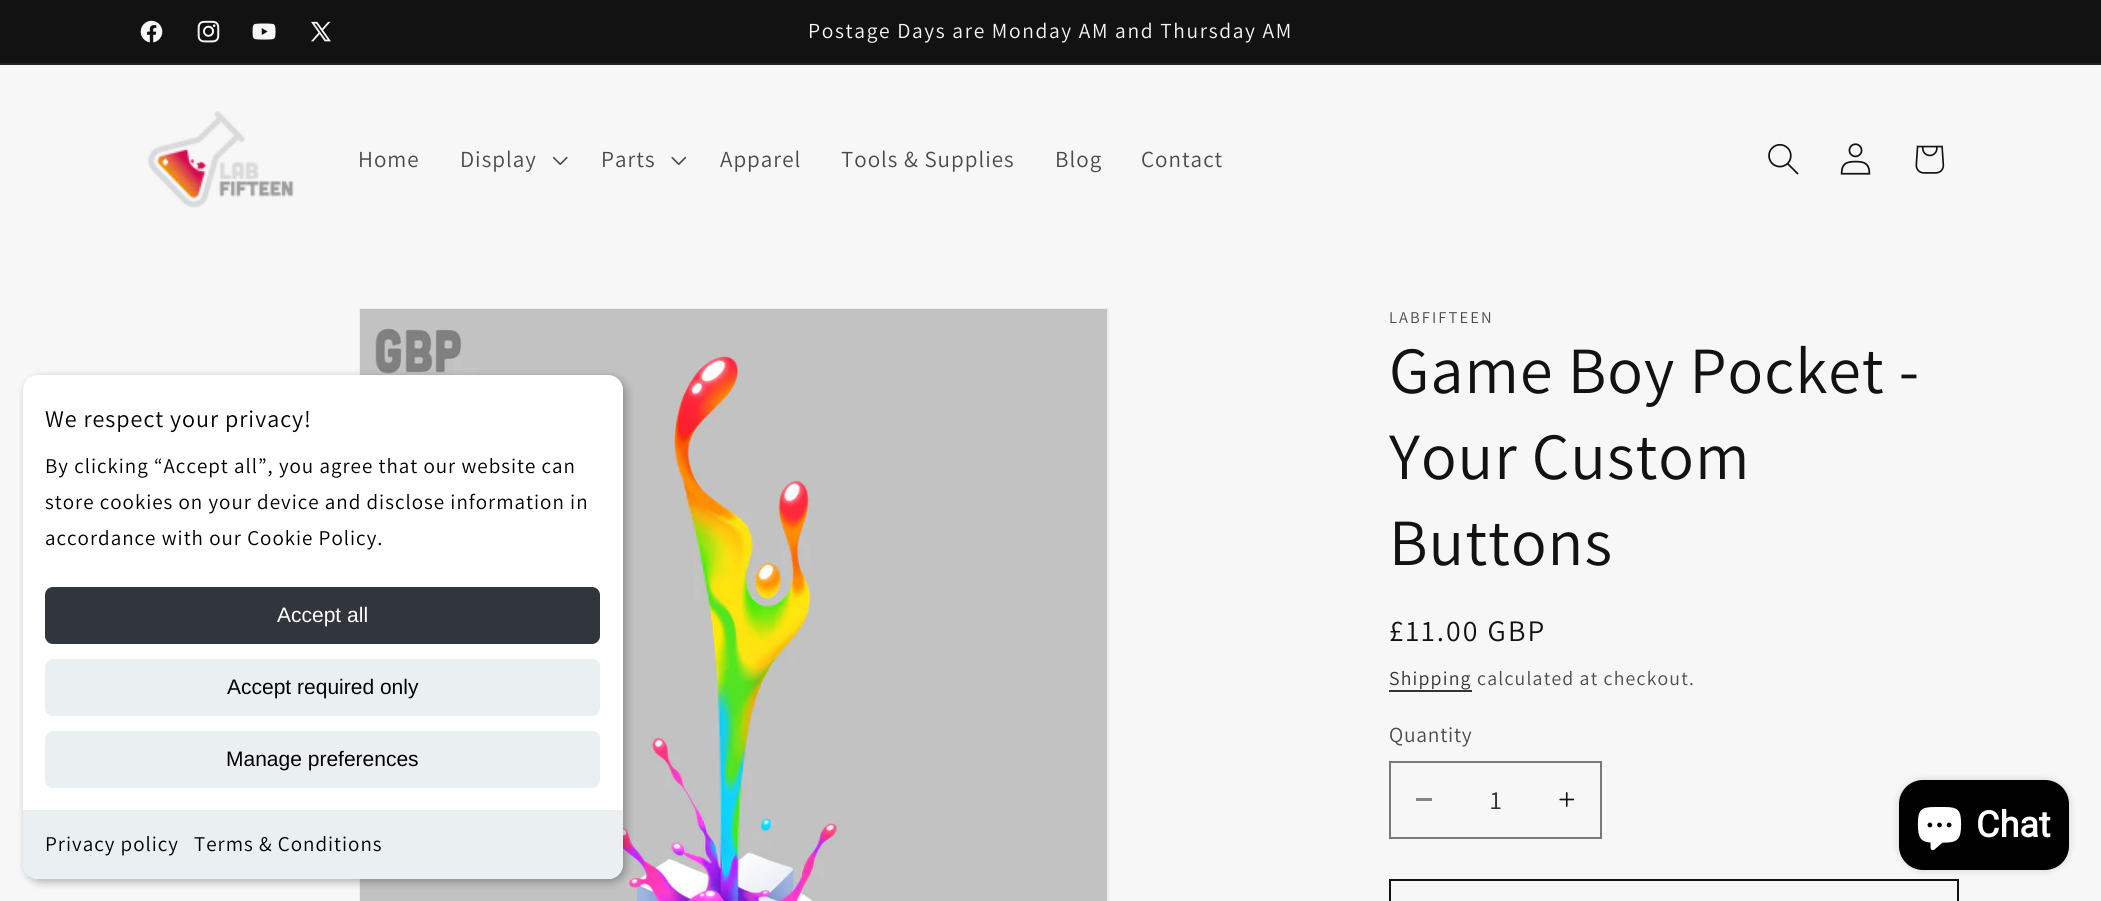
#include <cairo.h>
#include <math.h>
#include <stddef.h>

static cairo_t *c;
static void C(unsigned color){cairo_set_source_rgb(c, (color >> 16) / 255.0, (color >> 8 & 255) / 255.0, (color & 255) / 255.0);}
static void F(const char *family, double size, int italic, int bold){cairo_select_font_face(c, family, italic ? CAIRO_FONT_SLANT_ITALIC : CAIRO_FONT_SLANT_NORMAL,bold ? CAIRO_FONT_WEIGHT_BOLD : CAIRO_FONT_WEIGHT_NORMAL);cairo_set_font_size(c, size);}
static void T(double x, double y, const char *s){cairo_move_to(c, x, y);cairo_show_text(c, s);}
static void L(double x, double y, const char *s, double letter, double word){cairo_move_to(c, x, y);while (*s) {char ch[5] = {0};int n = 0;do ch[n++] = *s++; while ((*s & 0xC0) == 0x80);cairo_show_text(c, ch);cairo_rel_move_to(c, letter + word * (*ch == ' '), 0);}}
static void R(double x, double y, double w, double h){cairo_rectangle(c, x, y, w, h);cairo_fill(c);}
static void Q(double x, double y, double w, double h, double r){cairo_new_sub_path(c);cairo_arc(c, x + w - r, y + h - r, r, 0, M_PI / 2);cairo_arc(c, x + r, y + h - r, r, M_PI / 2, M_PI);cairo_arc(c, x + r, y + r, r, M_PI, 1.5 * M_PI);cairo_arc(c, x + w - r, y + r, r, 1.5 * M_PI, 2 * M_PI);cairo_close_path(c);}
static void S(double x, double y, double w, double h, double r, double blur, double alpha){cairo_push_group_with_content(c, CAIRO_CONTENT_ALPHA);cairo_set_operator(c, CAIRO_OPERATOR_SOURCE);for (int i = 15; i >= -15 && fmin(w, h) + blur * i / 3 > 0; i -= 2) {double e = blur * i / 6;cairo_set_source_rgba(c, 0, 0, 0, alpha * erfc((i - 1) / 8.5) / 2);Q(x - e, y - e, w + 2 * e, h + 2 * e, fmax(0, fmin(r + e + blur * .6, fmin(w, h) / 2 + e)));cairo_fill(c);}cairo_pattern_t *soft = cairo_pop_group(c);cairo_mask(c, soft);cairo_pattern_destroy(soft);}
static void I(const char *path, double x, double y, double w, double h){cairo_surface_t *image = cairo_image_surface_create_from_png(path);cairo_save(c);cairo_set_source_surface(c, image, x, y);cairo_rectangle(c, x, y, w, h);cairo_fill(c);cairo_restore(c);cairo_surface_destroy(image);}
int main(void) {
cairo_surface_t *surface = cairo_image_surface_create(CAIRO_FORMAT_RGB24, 2101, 901);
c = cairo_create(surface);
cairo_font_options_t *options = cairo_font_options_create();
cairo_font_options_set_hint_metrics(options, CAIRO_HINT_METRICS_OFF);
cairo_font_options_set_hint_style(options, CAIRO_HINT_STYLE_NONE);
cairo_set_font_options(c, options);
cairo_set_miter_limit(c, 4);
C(0xf7f7f7);
cairo_paint(c);
C(0x121212);
R(0,0,2101,63);
C(0x242424);
R(0,63,2101,2);
I("1.png",140,20,23,23);
I("2.png",197,20,23,23);
I("3.png",252,23,24,17);
I("4.png",311,21,20,21);
F("Assistant",21.45,0,0);
C(0xf7f7f7);
L(808,38,"Postage Days are Monday AM and Thursday AM",1.65,0);
I("5.png",148,111,146,97);
F("Assistant",23,0,0);
C(0x4b4b4b);
L(358,167,"Home",1,0);
L(460,167,"Display",1,0);
I("6.png",552,156,16,9);
L(601,167,"Parts",1,0);
I("7.png",671,156,16,9);
L(720,167,"Apparel",1,0);
L(841,167,"Tools & Supplies",1,0);
L(1055,167,"Blog",1,0);
L(1141,167,"Contact",1,0);
I("8.png",1768,143,31,32);
I("9.png",1840,143,31,32);
I("10.png",1915,145,30,29);
cairo_rectangle(c,360,309,748,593);
C(0xececec);
cairo_stroke(c);
I("11.png",360,309,747,592);
C(0x000000);
S(26,378,600,504,15,4.5,.15);
F("Assistant",16.5,0,0);
C(0x4b4b4b);
L(1389,323,"LABFIFTEEN",2.1,0);
F("Assistant",66,0,0);
C(0x121212);
L(1389,393,"Game Boy Pocket -",1,0);
L(1389,479,"Your Custom",1,0);
L(1389,565,"Buttons",1,0);
F("Assistant",29.75,0,0);
L(1389,641,"£11.00 GBP",2.1,0);
F("Assistant",19.75,0,0);
C(0x343434);
L(1389,685,"Shipping",1.2,0);
R(1389,690,83,2);
C(0x4b4b4b);
L(1477,685,"calculated at checkout.",1.2,0);
F("Assistant",21.45,0,0);
L(1389,742,"Quantity",.75,0);
C(0x858585);
R(1416,798,16,3);
I("12.png",1559,792,16,15);
cairo_rectangle(c,1390,762,211,76);
C(0x797979);
cairo_stroke(c);
F("Assistant",26,0,0);
C(0x343434);
T(1490,809,"1");
cairo_rectangle(c,1390,880,568,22);
C(0x121212);
cairo_stroke(c);
C(0x000000);
S(26,378,600,504,15,4.5,.15);
C(0xffffff);
Q(23,375,600,504,15);
cairo_fill(c);
F("Assistant",24,0,0);
C(0x000000);
L(45,427,"We respect your privacy!",1,0);
F("Assistant",21,0,0);
L(45,473,"By clicking “Accept all”, you agree that our website can",1,0);
L(45,509,"store cookies on your device and disclose information in",1,0);
L(45,545,"accordance with our Cookie Policy.",1,0);
C(0x30363c);
Q(45,587,555,57,8);
cairo_fill(c);
F("Liberation Sans",21,0,0);
C(0xffffff);
T(277,622,"Accept all");
C(0xeaeff2);
Q(45,659,555,57,8);
cairo_fill(c);
C(0x000000);
T(227,694,"Accept required only");
C(0xeaeff2);
Q(45,731,555,57,8);
cairo_fill(c);
C(0x000000);
T(226,766,"Manage preferences");
C(0xeaeff2);
cairo_new_path(c);
cairo_move_to(c,23,810);
cairo_line_to(c,623,810);
cairo_line_to(c,623,864);
cairo_curve_to(c,623,872.5,616.5,879,608,879);
cairo_line_to(c,38,879);
cairo_curve_to(c,29.5,879,23,872.5,23,864);
cairo_close_path(c);
cairo_fill(c);
C(0xeeeeee);
R(23,810,600,2);
cairo_save(c);
Q(23,375,600,504,15);
cairo_clip(c);
R(33,878,580,1);
cairo_restore(c);
F("Assistant",21,0,0);
C(0x000000);
L(45,851,"Privacy policy",1,0);
L(194,851,"Terms & Conditions",1,0);
C(0x000000);
S(1899,780,170,90,24,4,.15);
C(0x000000);
Q(1899,780,170,90,24);
cairo_fill(c);
I("13.png",1917,807,45,44);
F("Roboto",36,0,1);
C(0xffffff);
T(1976,837,"Chat");
cairo_surface_write_to_png(surface, "o.png");
cairo_font_options_destroy(options);
cairo_destroy(c);
cairo_surface_destroy(surface);
return 0;
}
